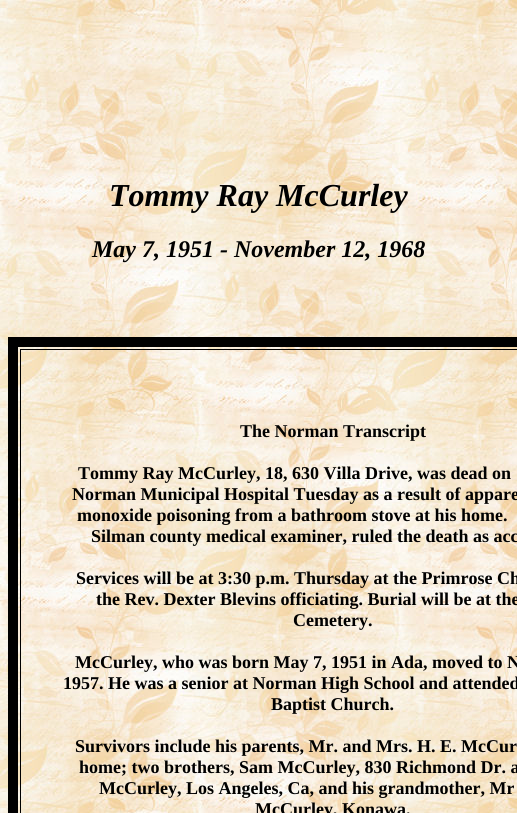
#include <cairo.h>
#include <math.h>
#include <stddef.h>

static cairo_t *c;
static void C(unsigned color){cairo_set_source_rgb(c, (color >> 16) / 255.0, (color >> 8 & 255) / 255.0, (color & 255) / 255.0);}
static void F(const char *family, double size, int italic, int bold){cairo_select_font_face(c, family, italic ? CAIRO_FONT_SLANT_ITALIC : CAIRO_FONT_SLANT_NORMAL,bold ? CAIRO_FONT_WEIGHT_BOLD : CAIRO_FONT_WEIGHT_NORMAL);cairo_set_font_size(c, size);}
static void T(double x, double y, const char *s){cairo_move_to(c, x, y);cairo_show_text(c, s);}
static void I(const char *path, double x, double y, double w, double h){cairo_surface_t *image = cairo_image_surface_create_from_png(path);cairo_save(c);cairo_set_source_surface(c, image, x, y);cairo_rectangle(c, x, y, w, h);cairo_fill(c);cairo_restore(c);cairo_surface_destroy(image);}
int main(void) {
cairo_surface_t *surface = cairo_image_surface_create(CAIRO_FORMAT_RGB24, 517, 813);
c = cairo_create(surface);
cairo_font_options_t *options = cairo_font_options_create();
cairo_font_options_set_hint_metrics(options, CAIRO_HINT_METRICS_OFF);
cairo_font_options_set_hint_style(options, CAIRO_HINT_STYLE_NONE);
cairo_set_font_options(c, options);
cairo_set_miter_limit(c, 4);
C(0xffffff);
cairo_paint(c);
I("1.png",0,0,517,813);
F("Liberation Serif",32,1,1);
C(0x000000);
T(109,206,"Tommy Ray McCurley");
F("Liberation Serif",24,1,1);
T(92,257,"May 7, 1951 - November 12, 1968");
cairo_rectangle(c,13,342,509,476);
cairo_set_line_width(c,10);
cairo_stroke(c);
cairo_rectangle(c,20.5,349.5,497,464);
cairo_set_line_width(c,1);
cairo_stroke(c);
F("Liberation Serif",18,0,1);
T(240,437,"The Norman Transcript");
T(78,479,"Tommy Ray McCurley, 18, 630 Villa Drive, was dead on");
T(72,500,"Norman Municipal Hospital Tuesday as a result of appare");
T(77,521,"monoxide poisoning from a bathroom stove at his home.");
T(91,542,"Silman county medical examiner, ruled the death as acc");
T(76,584,"Services will be at 3:30 p.m. Thursday at the Primrose Ch");
T(96,605,"the Rev. Dexter Blevins officiating. Burial will be at the");
T(293,626,"Cemetery.");
T(75,668,"McCurley, who was born May 7, 1951 in Ada, moved to N");
T(63,689,"1957. He was a senior at Norman High School and attended");
T(271,710,"Baptist Church.");
T(75,752,"Survivors include his parents, Mr. and Mrs. H. E. McCur");
T(79,773,"home; two brothers, Sam McCurley, 830 Richmond Dr. a");
T(99,794,"McCurley, Los Angeles, Ca, and his grandmother, Mr");
T(255,815,"McCurley, Konawa.");
cairo_surface_write_to_png(surface, "o.png");
cairo_font_options_destroy(options);
cairo_destroy(c);
cairo_surface_destroy(surface);
return 0;
}
